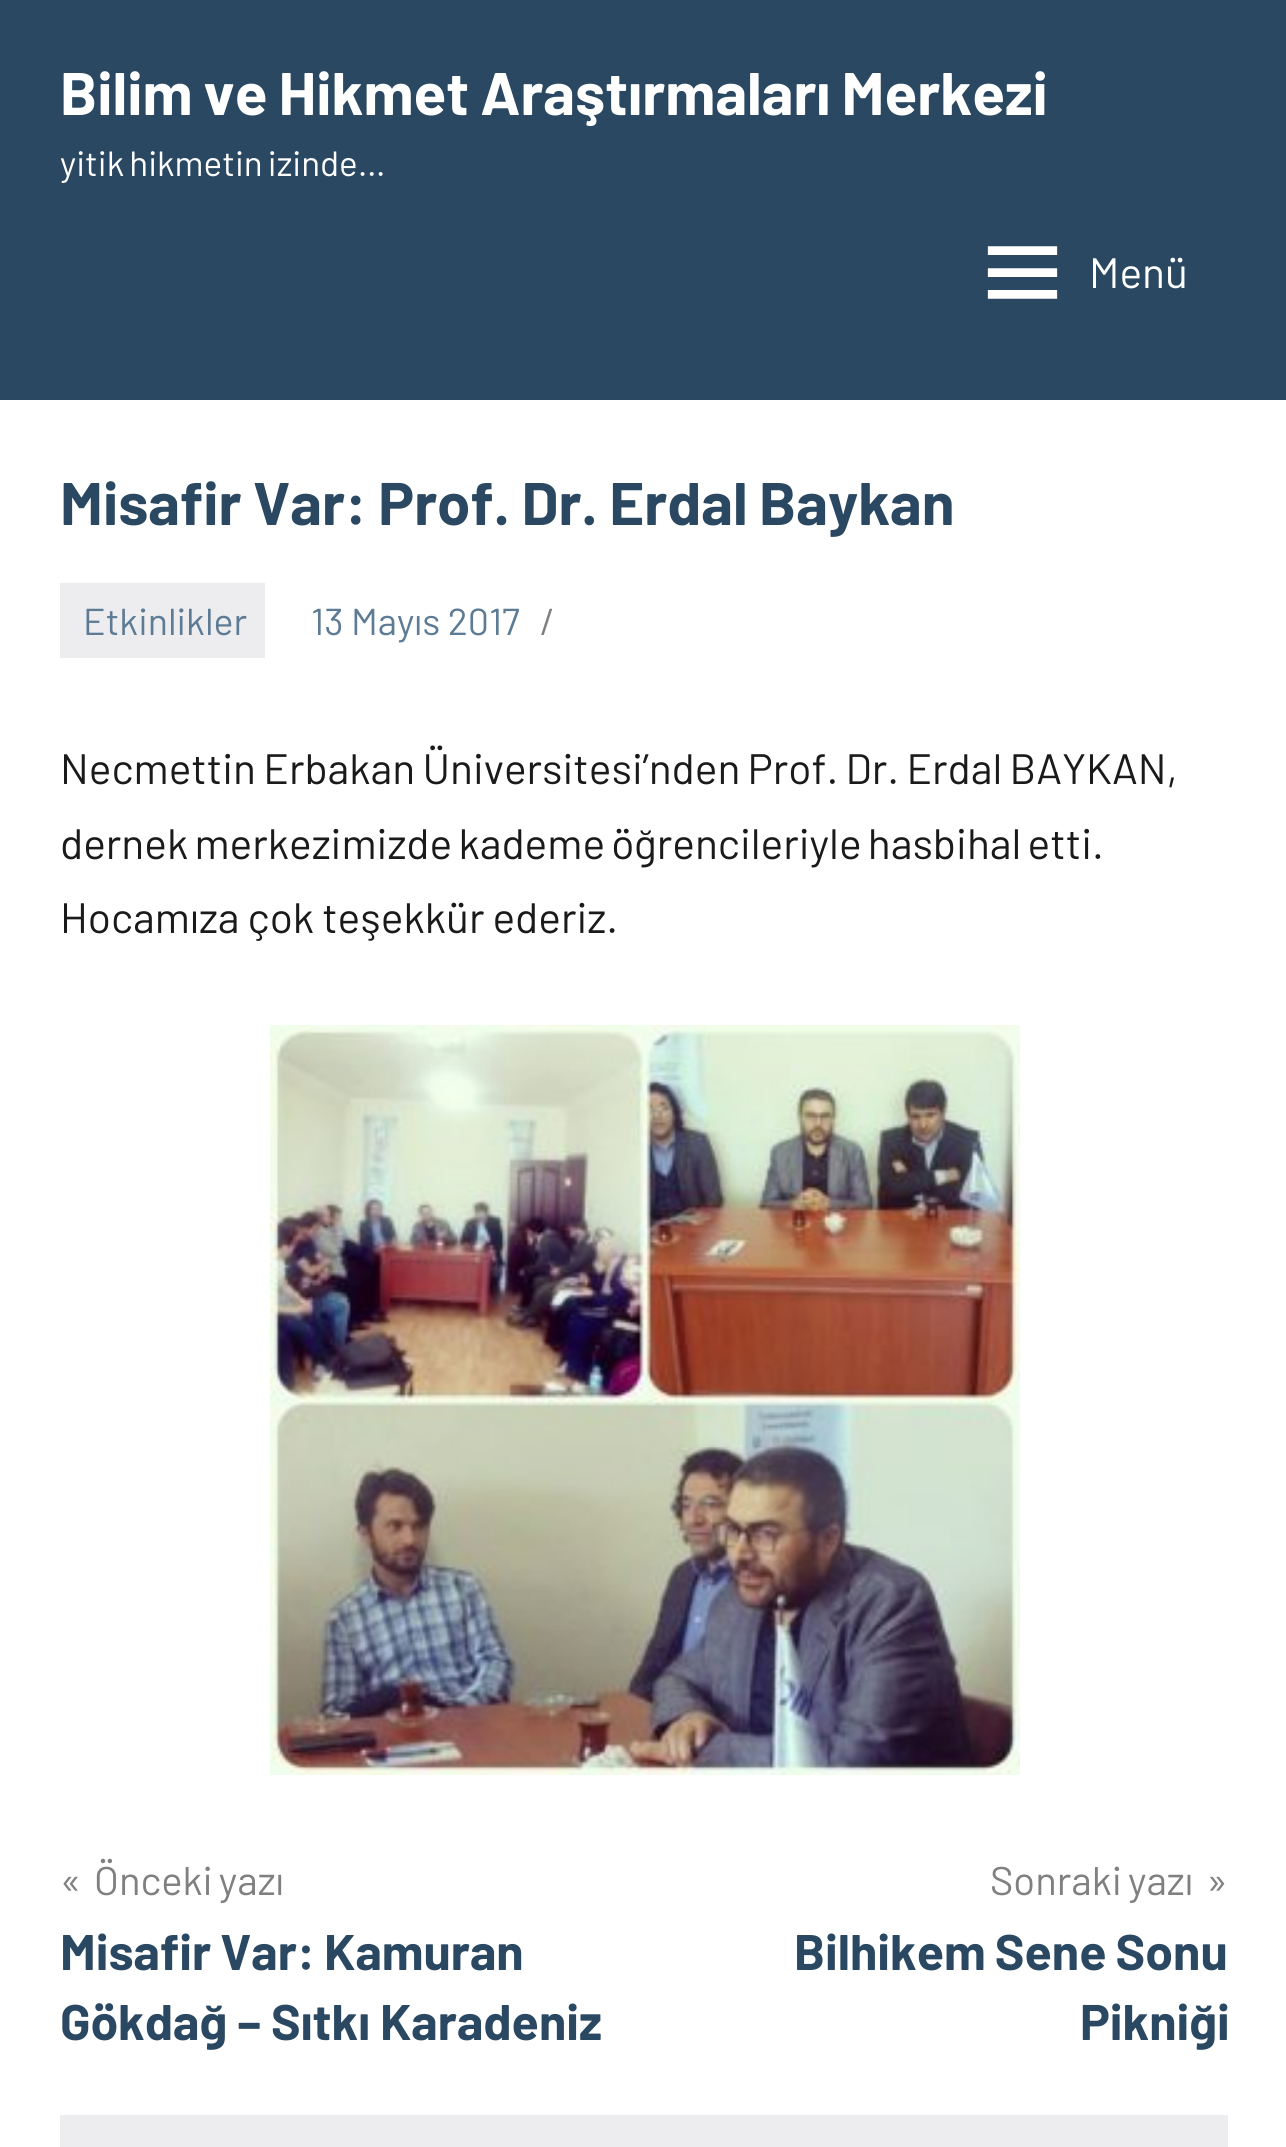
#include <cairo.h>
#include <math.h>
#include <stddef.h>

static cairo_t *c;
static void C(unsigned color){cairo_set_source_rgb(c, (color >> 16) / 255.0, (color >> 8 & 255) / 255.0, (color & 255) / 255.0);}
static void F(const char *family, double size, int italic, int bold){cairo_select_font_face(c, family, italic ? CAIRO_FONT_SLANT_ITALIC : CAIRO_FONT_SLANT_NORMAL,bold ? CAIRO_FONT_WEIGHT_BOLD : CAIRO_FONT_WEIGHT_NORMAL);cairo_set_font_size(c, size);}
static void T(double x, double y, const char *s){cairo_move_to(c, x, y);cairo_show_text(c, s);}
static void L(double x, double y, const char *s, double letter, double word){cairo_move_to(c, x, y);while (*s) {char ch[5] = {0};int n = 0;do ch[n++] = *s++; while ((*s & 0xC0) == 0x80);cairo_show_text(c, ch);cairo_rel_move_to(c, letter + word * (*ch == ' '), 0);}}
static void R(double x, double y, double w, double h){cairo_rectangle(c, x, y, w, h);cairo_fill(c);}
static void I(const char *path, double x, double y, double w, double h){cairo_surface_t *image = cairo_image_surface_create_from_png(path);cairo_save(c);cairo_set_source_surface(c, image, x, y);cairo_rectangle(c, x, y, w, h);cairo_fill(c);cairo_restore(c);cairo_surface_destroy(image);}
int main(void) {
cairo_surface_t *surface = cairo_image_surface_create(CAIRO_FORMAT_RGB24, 1286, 2147);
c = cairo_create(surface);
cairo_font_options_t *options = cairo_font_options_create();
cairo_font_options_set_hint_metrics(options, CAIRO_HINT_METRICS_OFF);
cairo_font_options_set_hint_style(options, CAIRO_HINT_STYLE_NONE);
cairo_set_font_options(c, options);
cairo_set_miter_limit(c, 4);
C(0xffffff);
cairo_paint(c);
C(0x2a4861);
R(0,0,1286,400);
F("Barlow",60,0,1);
C(0xffffff);
L(60,115,"Bilim ve Hikmet Araştırmaları Merkezi",0,-1);
F("Barlow",35,0,0);
L(60,176,"yitik hikmetin izinde…",0,-2);
I("1.png",987,246,71,53);
F("Barlow",42.5,0,0);
T(1089,288,"Menü");
F("Barlow",60,0,1);
C(0x2a4861);
L(60,525,"Misafir Var: Prof. Dr. Erdal Baykan",0,-.5);
C(0xededef);
R(60,583,205,75);
F("Barlow",37.5,0,0);
C(0x5d7b94);
T(83,635,"Etkinlikler");
T(311,635,"13 Mayıs 2017");
C(0x808080);
T(540,635,"/");
F("Barlow",42.5,0,0);
C(0x1a1a1a);
L(60,784,"Necmettin Erbakan Üniversitesi’nden Prof. Dr. Erdal BAYKAN,",0,-1.25);
L(60,859,"dernek merkezimizde kademe öğrencileriyle hasbihal etti.",0,-2.25);
L(60,933,"Hocamıza çok teşekkür ederiz.",0,-.5);
I("2.png",270,1025,750,750);
F("Barlow",40,0,0);
C(0x808080);
T(60,1895,"«");
L(94,1895,"Önceki yazı",0,-2);
F("Barlow",50,0,1);
C(0x2a4861);
L(60,1970,"Misafir Var: Kamuran",0,-1);
T(60,2040,"Gökdağ – Sıtkı Karadeniz");
F("Barlow",40,0,0);
C(0x808080);
L(990,1895,"Sonraki yazı",0,-2);
T(1206,1895,"»");
F("Barlow",50,0,1);
C(0x2a4861);
L(794,1970,"Bilhikem Sene Sonu",0,-1);
T(1080,2040,"Pikniği");
C(0xededef);
R(60,2115,1168,32);
cairo_surface_write_to_png(surface, "o.png");
cairo_font_options_destroy(options);
cairo_destroy(c);
cairo_surface_destroy(surface);
return 0;
}
